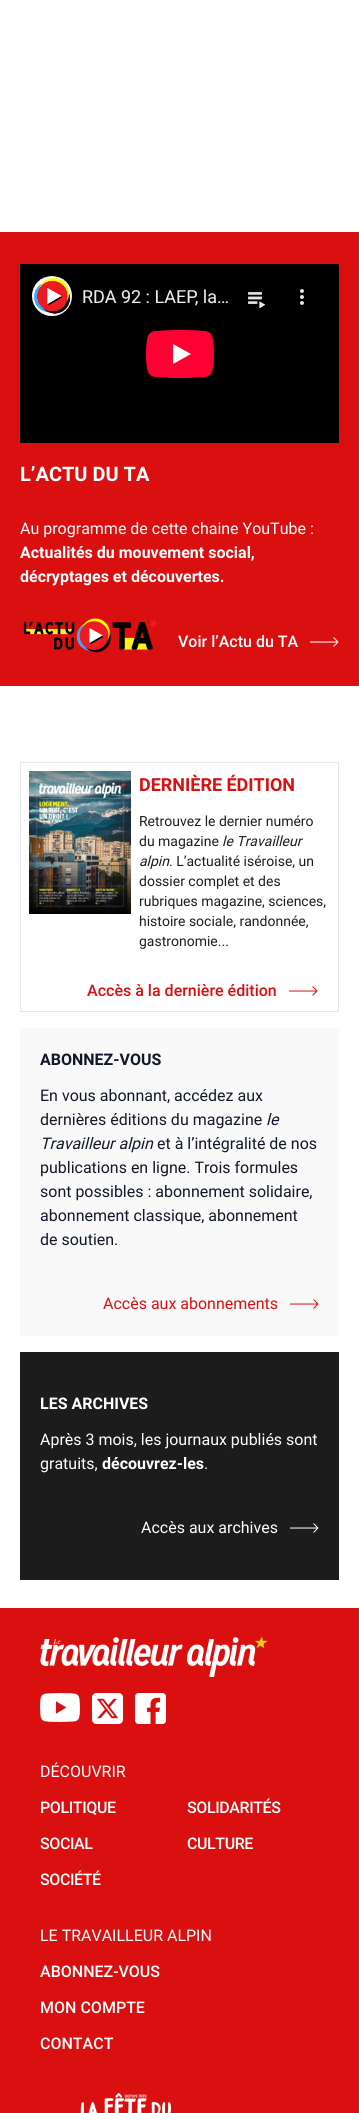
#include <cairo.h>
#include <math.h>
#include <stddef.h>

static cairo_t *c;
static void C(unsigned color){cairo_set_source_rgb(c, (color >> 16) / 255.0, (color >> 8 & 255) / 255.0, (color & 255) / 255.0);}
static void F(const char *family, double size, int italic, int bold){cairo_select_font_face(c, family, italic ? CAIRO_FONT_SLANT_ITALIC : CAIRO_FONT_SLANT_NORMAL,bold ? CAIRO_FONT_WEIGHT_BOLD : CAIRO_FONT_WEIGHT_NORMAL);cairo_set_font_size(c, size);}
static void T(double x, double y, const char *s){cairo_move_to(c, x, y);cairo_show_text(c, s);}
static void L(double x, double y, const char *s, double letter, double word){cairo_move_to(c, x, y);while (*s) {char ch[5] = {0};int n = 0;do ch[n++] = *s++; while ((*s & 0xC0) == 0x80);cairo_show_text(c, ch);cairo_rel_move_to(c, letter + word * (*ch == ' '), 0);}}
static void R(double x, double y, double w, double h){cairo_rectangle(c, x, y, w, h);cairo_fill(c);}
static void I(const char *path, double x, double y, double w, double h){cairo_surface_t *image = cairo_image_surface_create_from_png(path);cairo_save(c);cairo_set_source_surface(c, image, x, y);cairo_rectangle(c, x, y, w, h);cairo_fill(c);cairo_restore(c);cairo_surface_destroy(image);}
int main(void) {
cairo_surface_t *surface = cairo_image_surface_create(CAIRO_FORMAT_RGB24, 359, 2113);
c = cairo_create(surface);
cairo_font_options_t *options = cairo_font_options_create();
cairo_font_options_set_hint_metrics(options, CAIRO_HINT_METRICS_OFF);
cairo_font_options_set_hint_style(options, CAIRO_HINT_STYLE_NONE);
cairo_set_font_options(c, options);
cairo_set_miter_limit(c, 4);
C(0xffffff);
cairo_paint(c);
C(0xda1010);
R(0,232,359,454);
I("1.png",20,264,319,179);
F("Roboto",20,0,1);
C(0xffffff);
T(20,481,"L’ACTU DU TA");
F("Roboto",16,0,0);
T(20,534,"Au programme de cette chaine YouTube :");
F("Roboto",16,0,1);
T(20,558,"Actualités du mouvement social,");
T(20,582,"décryptages et découvertes.");
I("2.png",23,618,134,35);
F("Roboto Medium",16,0,0);
T(178,647,"Voir l’Actu du TA");
cairo_new_path(c);
cairo_move_to(c,333.5,637.5);
cairo_line_to(c,338,642);
cairo_move_to(c,338,642);
cairo_line_to(c,333.5,646.5);
cairo_move_to(c,338,642);
cairo_line_to(c,310,642);
cairo_set_line_width(c,1);
cairo_stroke(c);
cairo_rectangle(c,20.5,762.5,318,249);
C(0xe5e7eb);
cairo_stroke(c);
I("3.png",29,771,102,143);
F("Roboto",18,0,1);
C(0xda1010);
T(139,791,"DERNIÈRE ÉDITION");
F("Roboto",14,0,0);
C(0x1c1c1c);
T(139,826,"Retrouvez le dernier numéro");
T(139,846,"du magazine");
F("Roboto",14,1,0);
T(222,846,"le Travailleur");
T(139,866,"alpin");
F("Roboto",14,0,0);
T(169,866,". L’actualité iséroise, un");
T(139,886,"dossier complet et des");
T(139,906,"rubriques magazine, sciences,");
T(139,926,"histoire sociale, randonnée,");
T(139,946,"gastronomie...");
F("Roboto Medium",16,0,0);
C(0xda1010);
T(87,996,"Accès à la dernière édition");
cairo_new_path(c);
cairo_move_to(c,312.5,986.5);
cairo_line_to(c,317,991);
cairo_move_to(c,317,991);
cairo_line_to(c,312.5,995.5);
cairo_move_to(c,317,991);
cairo_line_to(c,289,991);
cairo_stroke(c);
C(0xf9f9f9);
R(20,1028,319,308);
F("Roboto",16,0,1);
C(0x111827);
T(40,1065,"ABONNEZ-VOUS");
F("Roboto",16,0,0);
T(40,1101,"En vous abonnant, accédez aux");
T(40,1125,"dernières éditions du magazine");
F("Roboto",16,1,0);
T(266,1125,"le");
T(40,1149,"Travailleur alpin");
F("Roboto",16,0,0);
T(157,1149,"et à l’intégralité de nos");
T(40,1173,"publications en ligne. Trois formules");
T(40,1197,"sont possibles : abonnement solidaire,");
T(40,1221,"abonnement classique, abonnement");
T(40,1245,"de soutien.");
C(0xda1010);
T(103,1309,"Accès aux abonnements");
cairo_new_path(c);
cairo_move_to(c,313.5,1299.5);
cairo_line_to(c,318,1304);
cairo_move_to(c,318,1304);
cairo_line_to(c,313.5,1308.5);
cairo_move_to(c,318,1304);
cairo_line_to(c,290,1304);
cairo_stroke(c);
C(0x1c1c1c);
R(20,1352,319,228);
F("Roboto",16,0,1);
C(0xffffff);
T(40,1409,"LES ARCHIVES");
F("Roboto",16,0,0);
T(40,1445,"Après 3 mois, les journaux publiés sont");
T(40,1469,"gratuits,");
F("Roboto",16,0,1);
T(102,1469,"découvrez-les");
F("Roboto",16,0,0);
T(204,1469,".");
T(141,1533,"Accès aux archives");
cairo_new_path(c);
cairo_move_to(c,313.5,1523.5);
cairo_line_to(c,318,1528);
cairo_move_to(c,318,1528);
cairo_line_to(c,313.5,1532.5);
cairo_move_to(c,318,1528);
cairo_line_to(c,290,1528);
cairo_stroke(c);
C(0xda1010);
R(0,1608,359,505);
I("4.png",40,1636,228,41);
I("5.png",40,1693,40,29);
I("6.png",92,1693,31,31);
I("7.png",135,1693,31,31);
C(0xffffff);
T(40,1777,"DÉCOUVRIR");
F("Roboto Medium",16,0,0);
L(40,1813,"POLITIQUE",-.4,0);
L(187,1813,"SOLIDARITÉS",-.4,0);
L(40,1849,"SOCIAL",-.4,0);
L(187,1849,"CULTURE",-.4,0);
L(40,1885,"SOCIÉTÉ",-.4,0);
F("Roboto",16,0,0);
T(40,1941,"LE TRAVAILLEUR ALPIN");
F("Roboto Medium",16,0,0);
T(40,1977,"ABONNEZ-VOUS");
T(40,2013,"MON COMPTE");
T(40,2049,"CONTACT");
I("8.png",80,2093,91,20);
cairo_surface_write_to_png(surface, "o.png");
cairo_font_options_destroy(options);
cairo_destroy(c);
cairo_surface_destroy(surface);
return 0;
}
